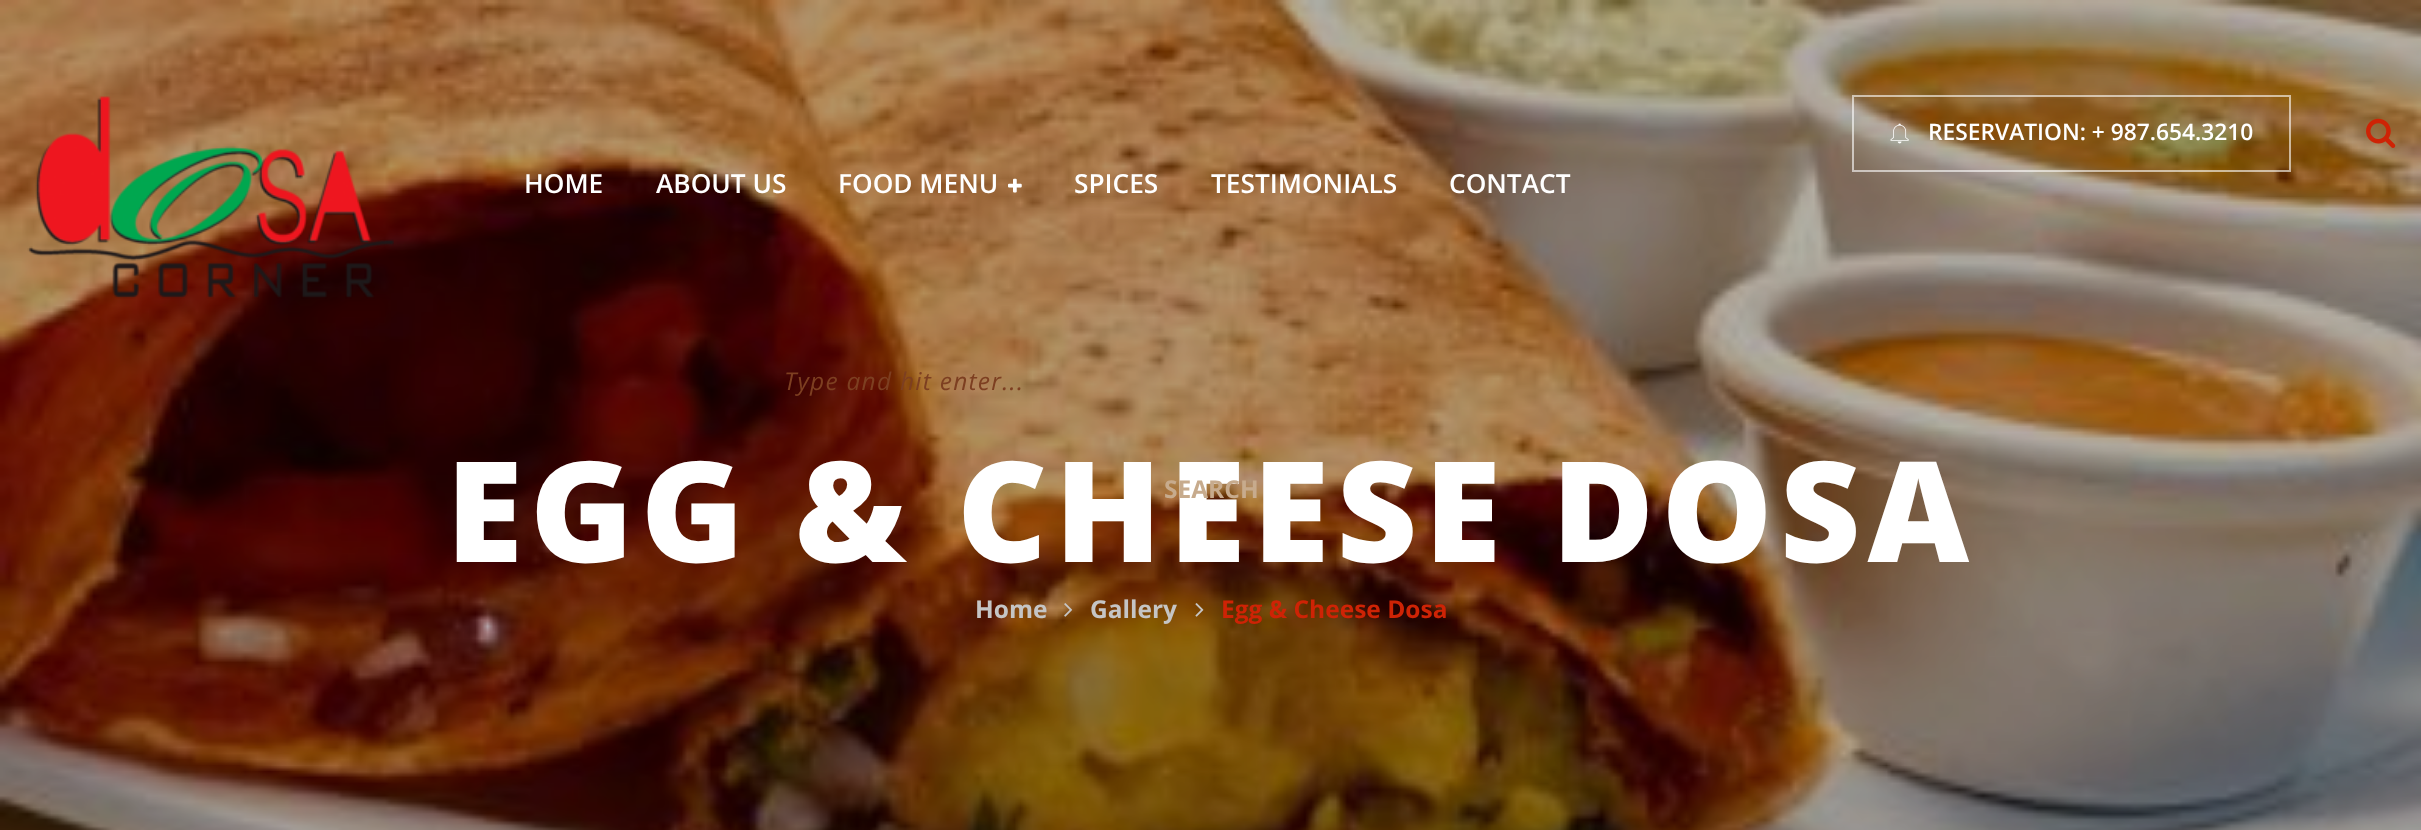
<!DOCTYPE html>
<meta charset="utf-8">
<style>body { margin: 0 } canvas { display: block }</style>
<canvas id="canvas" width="2421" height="830"></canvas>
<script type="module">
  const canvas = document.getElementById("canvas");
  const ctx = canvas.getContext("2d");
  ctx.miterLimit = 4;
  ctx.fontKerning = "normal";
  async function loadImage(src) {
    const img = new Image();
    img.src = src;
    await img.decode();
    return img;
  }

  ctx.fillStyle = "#ffffff";
  ctx.fillRect(0, 0, 2421, 830);
  ctx.drawImage(await loadImage("img5.png"), 0, 0, 2421, 830);
  ctx.drawImage(await loadImage("img1.png"), 27, 96, 367, 203);
  ctx.strokeStyle = "rgba(255, 255, 255, 0.6)";
  ctx.lineWidth = 2;
  ctx.strokeRect(1853, 96, 437, 75);
  ctx.drawImage(await loadImage("img2.png"), 1890, 123, 19, 21);
  ctx.font = "600 22.75px Open Sans";
  ctx.fillText("RESERVATION: + 987.654.3210", 1928, 140);
  ctx.drawImage(await loadImage("img3.png"), 2366, 118, 30, 30);
  ctx.font = "600 26.25px Open Sans";
  ctx.fillText("HOME", 524, 193);
  ctx.fillText("ABOUT US", 656, 193);
  ctx.fillText("FOOD MENU", 838, 193);
  ctx.drawImage(await loadImage("img4.png"), 1008, 178, 14, 15);
  ctx.fillText("SPICES", 1074, 193);
  ctx.fillText("TESTIMONIALS", 1211, 193);
  ctx.fillText("CONTACT", 1449, 193);
  ctx.letterSpacing = "7px";
  ctx.font = "800 140px Open Sans";
  ctx.fillText("EGG & CHEESE DOSA", 446, 562);
  ctx.letterSpacing = "0px";
  ctx.font = "bold 24.5px Open Sans";
  ctx.fillStyle = "#c5c5c5";
  ctx.fillText("Home", 975, 618);
  ctx.drawImage(await loadImage("img6.png"), 1064, 603, 9, 14);
  ctx.fillText("Gallery", 1090, 618);
  ctx.drawImage(await loadImage("img7.png"), 1195, 603, 9, 14);
  ctx.fillStyle = "#ce2305";
  ctx.fillText("Egg & Cheese Dosa", 1221, 618);
  ctx.letterSpacing = "1.25px";
  ctx.font = "italic 24.5px Open Sans";
  ctx.fillStyle = "#7d3f21";
  ctx.fillText("Type and hit enter...", 784, 390);
  ctx.letterSpacing = "0px";
  ctx.font = "bold 24.5px Open Sans";
  ctx.fillStyle = "#c7ab8d";
  ctx.fillText("SEARCH", 1164, 498);
</script>
